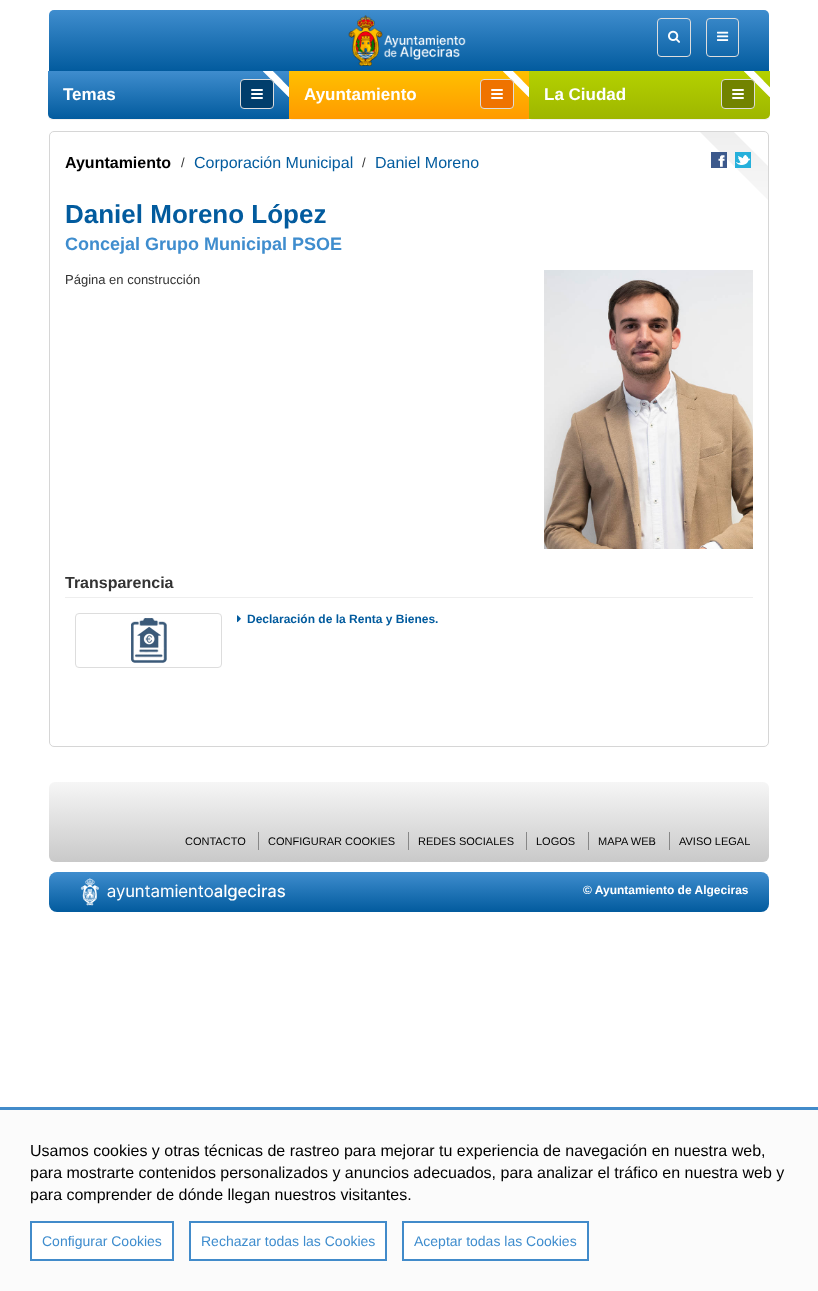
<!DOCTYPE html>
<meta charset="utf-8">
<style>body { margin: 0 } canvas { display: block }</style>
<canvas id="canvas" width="818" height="1291"></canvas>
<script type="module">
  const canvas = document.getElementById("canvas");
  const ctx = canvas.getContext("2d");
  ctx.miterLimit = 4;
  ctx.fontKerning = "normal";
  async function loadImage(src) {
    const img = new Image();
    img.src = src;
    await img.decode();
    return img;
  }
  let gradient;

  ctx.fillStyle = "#ffffff";
  ctx.fillRect(0, 0, 818, 1291);
  ctx.fillStyle = "rgba(0, 0, 0, 0.05)";
  ctx.filter = "blur(0.5px)";
  ctx.beginPath();
  ctx.roundRect(48, 72, 241, 48, 4);
  ctx.fill();
  ctx.filter = "none";
  ctx.fillStyle = "#ffffff";
  ctx.beginPath();
  ctx.roundRect(48, 71, 241, 48, 4);
  ctx.fill();
  gradient = ctx.createLinearGradient(169, 71, 169, 119);
  gradient.addColorStop(0, "#3f8dce");
  gradient.addColorStop(1, "#025b9e");
  ctx.fillStyle = gradient;
  ctx.beginPath();
  ctx.roundRect(48, 71, 241, 48, [0, 0, 0, 5]);
  ctx.fill();
  ctx.drawImage(await loadImage("img4.png"), 263, 71, 26, 26);
  ctx.fillStyle = "rgba(0, 0, 0, 0.05)";
  ctx.filter = "blur(0.5px)";
  ctx.beginPath();
  ctx.roundRect(289, 72, 240, 48, 4);
  ctx.fill();
  ctx.filter = "none";
  gradient = ctx.createLinearGradient(409, 71, 409, 119);
  gradient.addColorStop(0, "#ffc000");
  gradient.addColorStop(1, "#ff9a00");
  ctx.fillStyle = gradient;
  ctx.fillRect(289, 71, 240, 48);
  ctx.drawImage(await loadImage("img5.png"), 503, 71, 26, 26);
  ctx.fillStyle = "rgba(0, 0, 0, 0.05)";
  ctx.filter = "blur(0.5px)";
  ctx.beginPath();
  ctx.roundRect(529, 72, 241, 48, 4);
  ctx.fill();
  ctx.filter = "none";
  gradient = ctx.createLinearGradient(409, 10, 409, 71);
  gradient.addColorStop(0, "#3f8dce");
  gradient.addColorStop(1, "#025b9e");
  ctx.fillStyle = gradient;
  ctx.beginPath();
  ctx.roundRect(49, 10, 720, 61, [5, 5, 0, 0]);
  ctx.fill();
  ctx.drawImage(await loadImage("img1.png"), 348, 15, 118, 51);
  ctx.beginPath();
  ctx.roundRect(657.5, 18.5, 33, 38, 3.5);
  ctx.strokeStyle = "#dddddd";
  ctx.stroke();
  ctx.drawImage(await loadImage("img2.png"), 668, 30, 12, 13);
  ctx.beginPath();
  ctx.roundRect(706.5, 18.5, 32, 38, 3.5);
  ctx.stroke();
  ctx.drawImage(await loadImage("img3.png"), 717, 31, 12, 10);
  ctx.font = "bold 17px Liberation Sans";
  ctx.fillStyle = "#ffffff";
  ctx.fillText("Temas", 63, 100);
  ctx.fillStyle = "#013e6c";
  ctx.beginPath();
  ctx.roundRect(240.5, 79.5, 33, 29, 3.5);
  ctx.fill();
  ctx.stroke();
  ctx.fillStyle = "#ffffff";
  ctx.beginPath();
  ctx.roundRect(251, 89, 12, 2, 1);
  ctx.fill();
  ctx.beginPath();
  ctx.roundRect(251, 93, 12, 2, 1);
  ctx.fill();
  ctx.beginPath();
  ctx.roundRect(251, 97, 12, 2, 1);
  ctx.fill();
  ctx.fillText("Ayuntamiento", 304, 100);
  ctx.fillStyle = "#ef7300";
  ctx.beginPath();
  ctx.roundRect(480.5, 79.5, 33, 29, 3.5);
  ctx.fill();
  ctx.stroke();
  ctx.fillStyle = "#ffffff";
  ctx.beginPath();
  ctx.roundRect(491, 89, 12, 2, 1);
  ctx.fill();
  ctx.beginPath();
  ctx.roundRect(491, 93, 12, 2, 1);
  ctx.fill();
  ctx.beginPath();
  ctx.roundRect(491, 97, 12, 2, 1);
  ctx.fill();
  ctx.beginPath();
  ctx.roundRect(529, 71, 241, 48, 4);
  ctx.fill();
  gradient = ctx.createLinearGradient(650, 71, 650, 119);
  gradient.addColorStop(0, "#b4d100");
  gradient.addColorStop(1, "#9eb600");
  ctx.fillStyle = gradient;
  ctx.beginPath();
  ctx.roundRect(529, 71, 241, 48, [0, 0, 5, 0]);
  ctx.fill();
  ctx.drawImage(await loadImage("img6.png"), 744, 71, 26, 26);
  ctx.fillStyle = "#ffffff";
  ctx.fillText("La Ciudad", 544, 100);
  ctx.fillStyle = "#728300";
  ctx.beginPath();
  ctx.roundRect(721.5, 79.5, 33, 29, 3.5);
  ctx.fill();
  ctx.stroke();
  ctx.fillStyle = "#ffffff";
  ctx.beginPath();
  ctx.roundRect(732, 89, 12, 2, 1);
  ctx.fill();
  ctx.beginPath();
  ctx.roundRect(732, 93, 12, 2, 1);
  ctx.fill();
  ctx.beginPath();
  ctx.roundRect(732, 97, 12, 2, 1);
  ctx.fill();
  ctx.drawImage(await loadImage("img7.png"), 700, 132, 68, 68);
  ctx.beginPath();
  ctx.roundRect(49.5, 131.5, 719, 615, 4.5);
  ctx.strokeStyle = "#d6d6d6";
  ctx.stroke();
  ctx.font = "bold 16px Liberation Sans";
  ctx.fillStyle = "#000000";
  ctx.fillText("Ayuntamiento", 65, 168);
  ctx.font = "13px Liberation Sans";
  ctx.fillStyle = "#333333";
  ctx.fillText("/", 181, 167);
  ctx.font = "16px Liberation Sans";
  ctx.fillStyle = "#025b9e";
  ctx.fillText("Corporación Municipal", 194, 168);
  ctx.font = "13px Liberation Sans";
  ctx.fillStyle = "#333333";
  ctx.fillText("/", 362, 167);
  ctx.font = "16px Liberation Sans";
  ctx.fillStyle = "#025b9e";
  ctx.fillText("Daniel Moreno", 375, 168);
  ctx.drawImage(await loadImage("img8.png"), 711, 152, 16, 16);
  ctx.drawImage(await loadImage("img9.png"), 735, 152, 16, 16);
  ctx.font = "bold 26px Liberation Sans";
  ctx.fillText("Daniel Moreno López", 65, 223);
  ctx.font = "bold 18px Liberation Sans";
  ctx.fillStyle = "#3f8dce";
  ctx.fillText("Concejal Grupo Municipal PSOE", 65, 250);
  ctx.font = "13px Liberation Sans";
  ctx.fillStyle = "#333333";
  ctx.fillText("Página en construcción", 65, 284);
  ctx.drawImage(await loadImage("img10.png"), 544, 270, 209, 279);
  ctx.fillStyle = "#eeeeee";
  ctx.fillRect(65, 597, 688, 1);
  ctx.font = "bold 16px Liberation Sans";
  ctx.fillStyle = "#333333";
  ctx.fillText("Transparencia", 65, 588);
  ctx.beginPath();
  ctx.roundRect(75.5, 613.5, 146, 54, 3.5);
  ctx.strokeStyle = "#dddddd";
  ctx.stroke();
  ctx.drawImage(await loadImage("img11.png"), 131, 618, 36, 45);
  ctx.drawImage(await loadImage("img12.png"), 237, 615, 4, 8);
  ctx.font = "bold 12px Liberation Sans";
  ctx.fillStyle = "#025b9e";
  ctx.fillText("Declaración de la Renta y Bienes.", 247, 623);
  gradient = ctx.createLinearGradient(409, 782, 409, 862);
  gradient.addColorStop(0, "#f6f6f6");
  gradient.addColorStop(1, "#c9c9c9");
  ctx.fillStyle = gradient;
  ctx.beginPath();
  ctx.roundRect(49, 782, 720, 80, 6);
  ctx.fill();
  ctx.font = "11px Liberation Sans";
  ctx.fillStyle = "#000000";
  ctx.fillText("CONTACTO", 185, 845);
  ctx.fillStyle = "#878787";
  ctx.fillRect(258, 832, 1, 18);
  ctx.fillStyle = "#000000";
  ctx.fillText("CONFIGURAR COOKIES", 268, 845);
  ctx.fillStyle = "#878787";
  ctx.fillRect(408, 832, 1, 18);
  ctx.fillStyle = "#000000";
  ctx.fillText("REDES SOCIALES", 418, 845);
  ctx.fillStyle = "#878787";
  ctx.fillRect(526, 832, 1, 18);
  ctx.fillStyle = "#000000";
  ctx.fillText("LOGOS", 536, 845);
  ctx.fillStyle = "#878787";
  ctx.fillRect(588, 832, 1, 18);
  ctx.fillStyle = "#000000";
  ctx.fillText("MAPA WEB", 598, 845);
  ctx.fillStyle = "#878787";
  ctx.fillRect(669, 832, 1, 18);
  ctx.fillStyle = "#000000";
  ctx.fillText("AVISO LEGAL", 679, 845);
  gradient = ctx.createLinearGradient(409, 872, 409, 912);
  gradient.addColorStop(0, "#3f8dce");
  gradient.addColorStop(1, "#025b9e");
  ctx.fillStyle = gradient;
  ctx.beginPath();
  ctx.roundRect(49, 872, 720, 40, 8);
  ctx.fill();
  ctx.drawImage(await loadImage("img13.png"), 80, 878, 206, 28);
  ctx.font = "bold 12px Liberation Sans";
  ctx.fillStyle = "#ffffff";
  ctx.fillText("© Ayuntamiento de Algeciras", 583, 894);
  ctx.fillStyle = "#fbfbfb";
  ctx.fillRect(0, 1110, 818, 181);
  ctx.fillStyle = "#428bca";
  ctx.fillRect(0, 1107, 818, 3);
  ctx.font = "16px Liberation Sans";
  ctx.fillStyle = "#000000";
  ctx.fillText("Usamos cookies y otras técnicas de rastreo para mejorar tu experiencia de navegación en nuestra web,", 30, 1156);
  ctx.fillText("para mostrarte contenidos personalizados y anuncios adecuados, para analizar el tráfico en nuestra web y", 30, 1178);
  ctx.fillText("para comprender de dónde llegan nuestros visitantes.", 30, 1200);
  ctx.fillStyle = "#ffffff";
  ctx.beginPath();
  ctx.rect(31, 1222, 142, 38);
  ctx.fill();
  ctx.strokeStyle = "#428bca";
  ctx.lineWidth = 2;
  ctx.stroke();
  ctx.font = "14px Liberation Sans";
  ctx.fillStyle = "#3f8dce";
  ctx.fillText("Configurar Cookies", 42, 1246);
  ctx.fillStyle = "#ffffff";
  ctx.beginPath();
  ctx.rect(190, 1222, 196, 38);
  ctx.fill();
  ctx.stroke();
  ctx.fillStyle = "#3f8dce";
  ctx.fillText("Rechazar todas las Cookies", 201, 1246);
  ctx.fillStyle = "#ffffff";
  ctx.beginPath();
  ctx.rect(403, 1222, 185, 38);
  ctx.fill();
  ctx.stroke();
  ctx.fillStyle = "#3f8dce";
  ctx.fillText("Aceptar todas las Cookies", 414, 1246);
</script>
